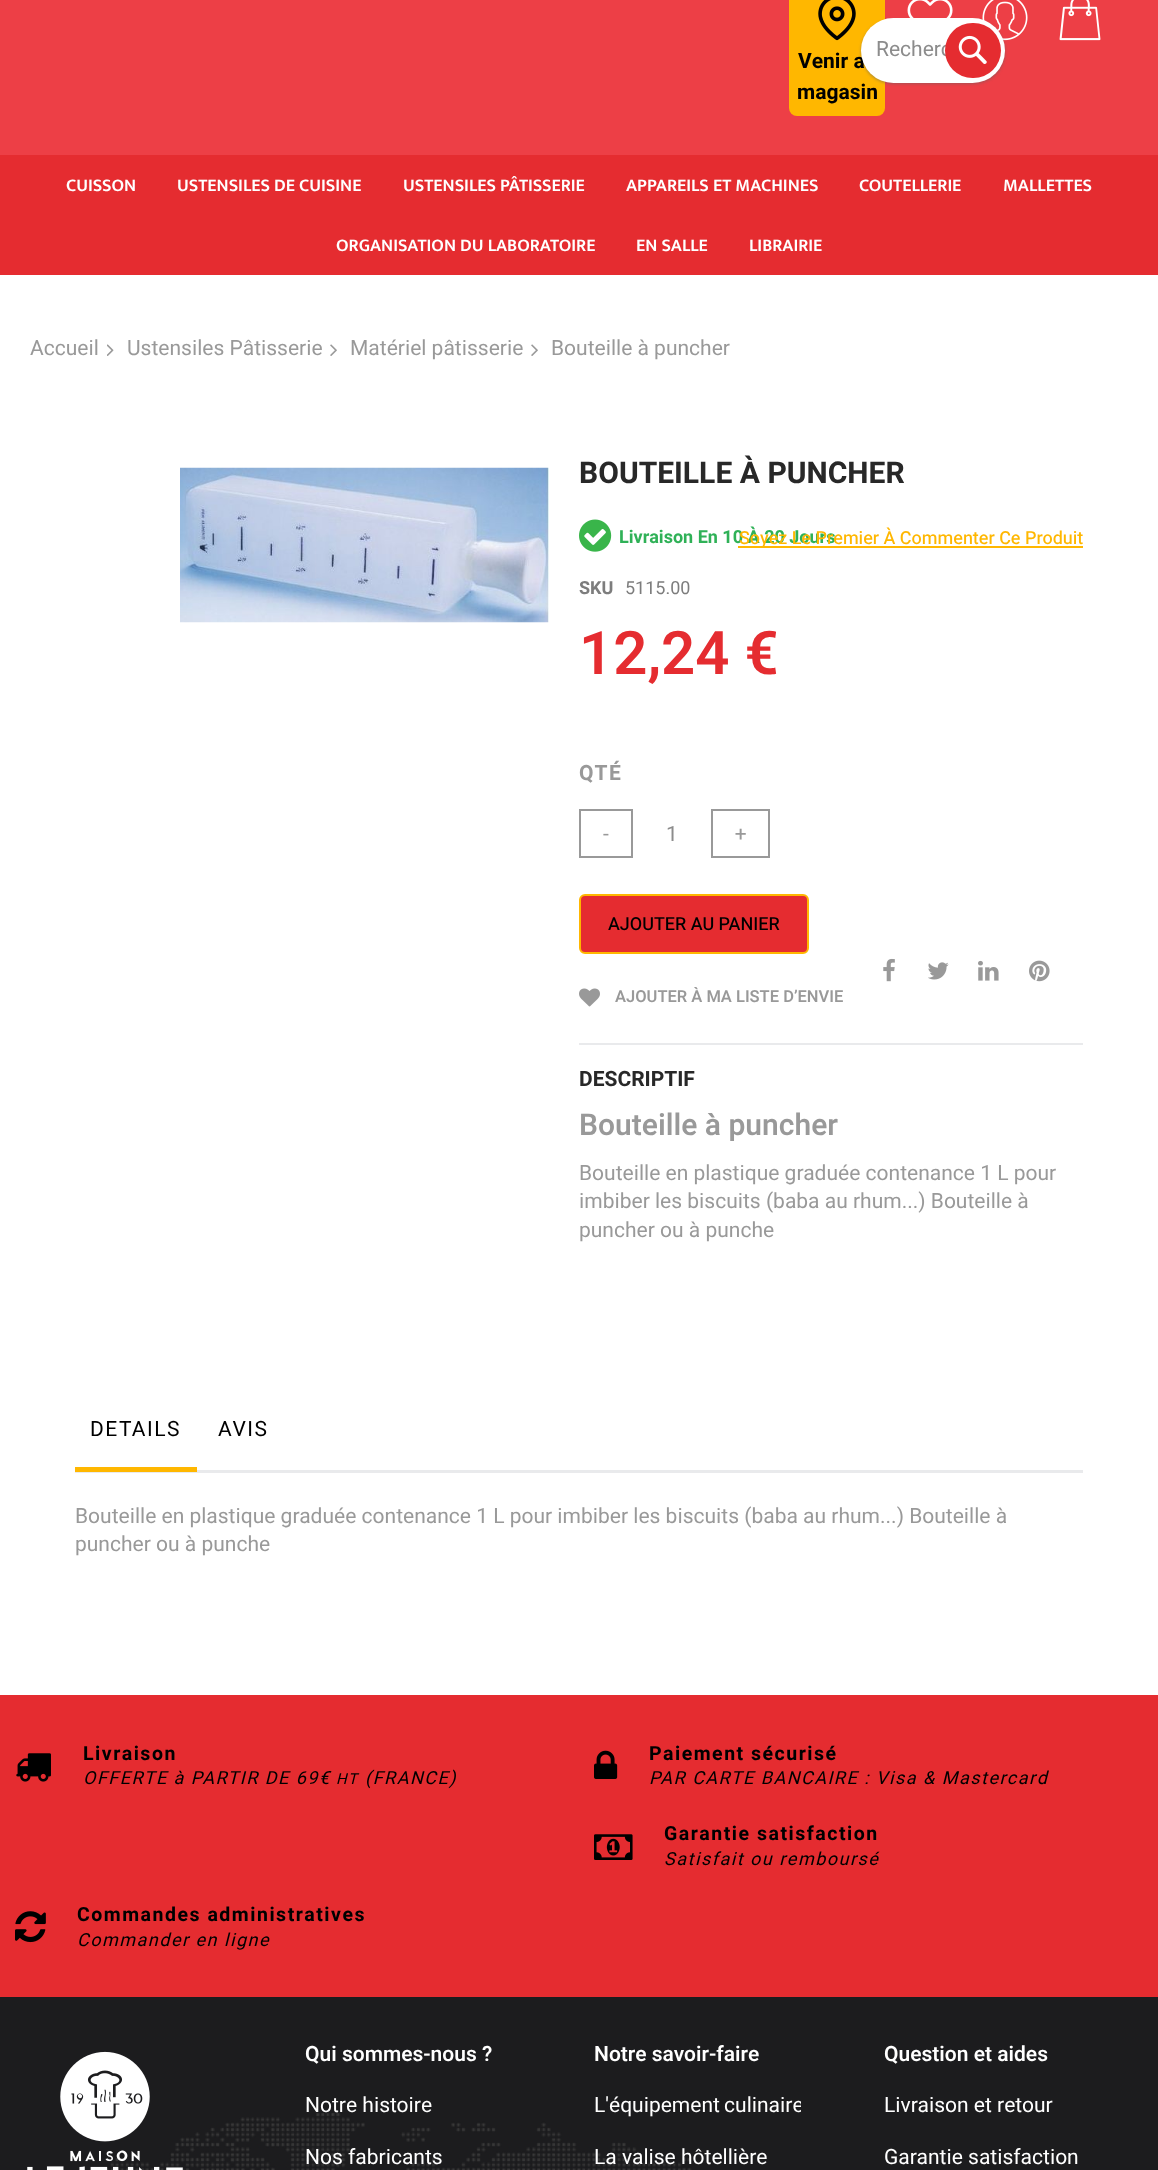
<!DOCTYPE html>
<meta charset="utf-8">
<style>body { margin: 0 } canvas { display: block }</style>
<canvas id="canvas" width="1158" height="2170"></canvas>
<script type="module">
  const canvas = document.getElementById("canvas");
  const ctx = canvas.getContext("2d");
  ctx.miterLimit = 4;
  ctx.fontKerning = "normal";
  async function loadImage(src) {
    const img = new Image();
    img.src = src;
    await img.decode();
    return img;
  }

  ctx.fillStyle = "#ffffff";
  ctx.fillRect(0, 0, 1158, 2170);
  ctx.fillStyle = "#ed3f46";
  ctx.fillRect(0, 0, 1158, 155);
  ctx.drawImage(await loadImage("img2.png"), 907, 0, 46, 18);
  ctx.drawImage(await loadImage("img3.png"), 982, 0, 46, 41);
  ctx.fillStyle = "#ffb700";
  ctx.beginPath();
  ctx.roundRect(789, -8, 96, 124, 8);
  ctx.fill();
  ctx.drawImage(await loadImage("img5.png"), 818, 0, 38, 41);
  ctx.fillStyle = "rgba(98, 98, 98, 0.5)";
  ctx.filter = "blur(1.5px)";
  ctx.beginPath();
  ctx.roundRect(861, 20, 144, 64, 32);
  ctx.fill();
  ctx.filter = "none";
  ctx.font = "bold 21px Heebo";
  ctx.fillStyle = "#000000";
  ctx.fillText("Venir a", 798, 68);
  ctx.fillStyle = "#ffffff";
  ctx.beginPath();
  ctx.roundRect(861, 18, 144, 65, 32.5);
  ctx.fill();
  ctx.font = "21px Heebo";
  ctx.fillStyle = "#8c8c8c";
  ctx.fillText("Recherc", 876, 56);
  ctx.fillStyle = "#e52c30";
  ctx.beginPath();
  ctx.roundRect(945, 23, 56, 55, 27.5);
  ctx.fill();
  ctx.drawImage(await loadImage("img1.png"), 958, 35, 29, 29);
  ctx.drawImage(await loadImage("img4.png"), 1059, 0, 42, 41);
  ctx.font = "bold 21px Heebo";
  ctx.fillStyle = "#000000";
  ctx.fillText("magasin", 797, 99);
  ctx.fillStyle = "#e52c30";
  ctx.fillRect(0, 155, 1158, 120);
  ctx.font = "600 18px Mukta";
  ctx.fillStyle = "#ffffff";
  ctx.fillText("CUISSON", 66, 191);
  ctx.fillText("USTENSILES DE CUISINE", 177, 191);
  ctx.fillText("USTENSILES PÂTISSERIE", 403, 191);
  ctx.fillText("APPAREILS ET MACHINES", 626, 191);
  ctx.fillText("COUTELLERIE", 859, 191);
  ctx.fillText("MALLETTES", 1003, 191);
  ctx.fillText("ORGANISATION DU LABORATOIRE", 336, 251);
  ctx.fillText("EN SALLE", 636, 251);
  ctx.fillText("LIBRAIRIE", 749, 251);
  ctx.font = "21px Heebo";
  ctx.fillStyle = "#999999";
  ctx.fillText("Accueil", 30, 355);
  ctx.drawImage(await loadImage("img6.png"), 107, 344, 7, 12);
  ctx.fillText("Ustensiles Pâtisserie", 127, 355);
  ctx.drawImage(await loadImage("img7.png"), 330, 344, 7, 12);
  ctx.fillText("Matériel pâtisserie", 350, 355);
  ctx.drawImage(await loadImage("img7.png"), 531, 344, 7, 12);
  ctx.fillText("Bouteille à puncher", 551, 355);
  ctx.drawImage(await loadImage("img8.png"), 180, 467, 369, 156);
  ctx.font = "bold 30px Heebo";
  ctx.fillStyle = "#282828";
  ctx.fillText("BOUTEILLE À PUNCHER", 579, 483);
  ctx.drawImage(await loadImage("img9.png"), 579, 519, 33, 33);
  ctx.font = "bold 18px Heebo";
  ctx.fillStyle = "#2fb157";
  ctx.fillText("Livraison En 10 À 20 Jours", 619, 543);
  ctx.fillStyle = "#7d7d7d";
  ctx.fillText("SKU", 579, 594);
  ctx.font = "18px Heebo";
  ctx.fillText("5115.00", 625, 594);
  ctx.font = "600 60px Heebo";
  ctx.fillStyle = "#e52c30";
  ctx.fillText("12,24 €", 579, 674);
  ctx.fillStyle = "#ffb700";
  ctx.fillRect(738, 546, 345, 2);
  ctx.font = "500 18px Heebo";
  ctx.fillText("Soyez Le Premier À Commenter Ce Produit", 739, 544);
  ctx.letterSpacing = "1.5px";
  ctx.font = "bold 21px Heebo";
  ctx.fillStyle = "#999999";
  ctx.fillText("QTÉ", 579, 780);
  ctx.strokeStyle = "#999999";
  ctx.lineWidth = 2;
  ctx.strokeRect(580, 810, 52, 47);
  ctx.letterSpacing = "0px";
  ctx.font = "21px Heebo";
  ctx.fillText("-", 603, 841);
  ctx.fillStyle = "#8c8c8c";
  ctx.fillText("1", 666, 841);
  ctx.strokeRect(712, 810, 57, 47);
  ctx.fillStyle = "#999999";
  ctx.fillText("+", 735, 841);
  ctx.fillStyle = "#e52c30";
  ctx.beginPath();
  ctx.roundRect(580, 895, 228, 58, 5);
  ctx.fill();
  ctx.strokeStyle = "#ffb700";
  ctx.stroke();
  ctx.font = "500 18px Heebo";
  ctx.fillStyle = "#000000";
  ctx.fillText("AJOUTER AU PANIER", 608, 930);
  ctx.fillStyle = "#e9eaec";
  ctx.fillRect(579, 1043, 504, 2);
  ctx.drawImage(await loadImage("img10.png"), 883, 958, 12, 24);
  ctx.drawImage(await loadImage("img11.png"), 928, 962, 21, 18);
  ctx.drawImage(await loadImage("img12.png"), 978, 960, 21, 21);
  ctx.drawImage(await loadImage("img13.png"), 1029, 960, 21, 22);
  ctx.drawImage(await loadImage("img14.png"), 579, 988, 21, 19);
  ctx.font = "600 16.5px Heebo";
  ctx.fillStyle = "#999999";
  ctx.fillText("AJOUTER À MA LISTE D’ENVIE", 615, 1002);
  ctx.font = "bold 21px Heebo";
  ctx.fillStyle = "#282828";
  ctx.fillText("DESCRIPTIF", 579, 1086);
  ctx.font = "600 30px Heebo";
  ctx.fillStyle = "#999999";
  ctx.fillText("Bouteille à puncher", 579, 1135);
  ctx.font = "21px Heebo";
  ctx.fillText("Bouteille en plastique graduée contenance 1 L pour", 579, 1180);
  ctx.fillText("imbiber les biscuits (baba au rhum...) Bouteille à", 579, 1208);
  ctx.fillText("puncher ou à punche", 579, 1237);
  ctx.letterSpacing = "1.5px";
  ctx.fillStyle = "#000000";
  ctx.fillText("DETAILS", 90, 1436);
  ctx.fillStyle = "#e9eaec";
  ctx.fillRect(75, 1470, 1008, 3);
  ctx.fillStyle = "#ffb700";
  ctx.fillRect(75, 1467, 122, 5);
  ctx.fillStyle = "#000000";
  ctx.fillText("AVIS", 218, 1436);
  ctx.letterSpacing = "0px";
  ctx.fillStyle = "#999999";
  ctx.fillText("Bouteille en plastique graduée contenance 1 L pour imbiber les biscuits (baba au rhum...) Bouteille à", 75, 1523);
  ctx.fillText("puncher ou à punche", 75, 1551);
  ctx.fillStyle = "#e52c30";
  ctx.fillRect(0, 1695, 1158, 302);
  ctx.drawImage(await loadImage("img15.png"), 16, 1753, 35, 29);
  ctx.letterSpacing = "1.5px";
  ctx.font = "bold 19.5px Heebo";
  ctx.fillStyle = "#000000";
  ctx.fillText("Livraison", 83, 1760);
  ctx.font = "italic 18px Heebo";
  ctx.fillText("OFFERTE à PARTIR DE 69€", 83, 1784);
  ctx.font = "italic 15px Heebo";
  ctx.fillText("HT", 336, 1784);
  ctx.font = "italic 18px Heebo";
  ctx.fillText("(FRANCE)", 365, 1784);
  ctx.drawImage(await loadImage("img16.png"), 594, 1750, 24, 29);
  ctx.font = "bold 19.5px Heebo";
  ctx.fillText("Paiement sécurisé", 649, 1760);
  ctx.font = "italic 18px Heebo";
  ctx.fillText("PAR CARTE BANCAIRE : Visa & Mastercard", 649, 1784);
  ctx.drawImage(await loadImage("img17.png"), 594, 1834, 39, 26);
  ctx.font = "bold 19.5px Heebo";
  ctx.fillText("Garantie satisfaction", 664, 1840);
  ctx.font = "italic 18px Heebo";
  ctx.fillText("Satisfait ou remboursé", 664, 1865);
  ctx.drawImage(await loadImage("img18.png"), 15, 1911, 31, 32);
  ctx.font = "bold 19.5px Heebo";
  ctx.fillText("Commandes administratives", 77, 1921);
  ctx.font = "italic 18px Heebo";
  ctx.fillText("Commander en ligne", 77, 1946);
  ctx.fillStyle = "#1c1c1e";
  ctx.fillRect(0, 1997, 1158, 173);
  ctx.drawImage(await loadImage("img19.png"), 107, 2113, 585, 57);
  ctx.drawImage(await loadImage("img20.png"), 27, 2051, 156, 119);
  ctx.letterSpacing = "0px";
  ctx.font = "600 21px Heebo";
  ctx.fillStyle = "#ffffff";
  ctx.fillText("Qui sommes-nous ?", 305, 2061);
  ctx.font = "21px Heebo";
  ctx.fillText("Notre histoire", 305, 2112);
  ctx.fillText("Nos fabricants", 305, 2164);
  ctx.font = "600 21px Heebo";
  ctx.fillText("Notre savoir-faire", 594, 2061);
  ctx.save();
  ctx.beginPath();
  ctx.rect(594, 2093, 207, 28);
  ctx.clip();
  ctx.wordSpacing = "-1px";
  ctx.font = "21px Heebo";
  ctx.fillText("L'équipement culinaire", 594, 2112);
  ctx.restore();
  ctx.font = "21px Heebo";
  ctx.fillText("La valise hôtellière", 594, 2164);
  ctx.font = "600 21px Heebo";
  ctx.fillText("Question et aides", 884, 2061);
  ctx.font = "21px Heebo";
  ctx.fillText("Livraison et retour", 884, 2112);
  ctx.fillText("Garantie satisfaction", 884, 2164);
</script>
